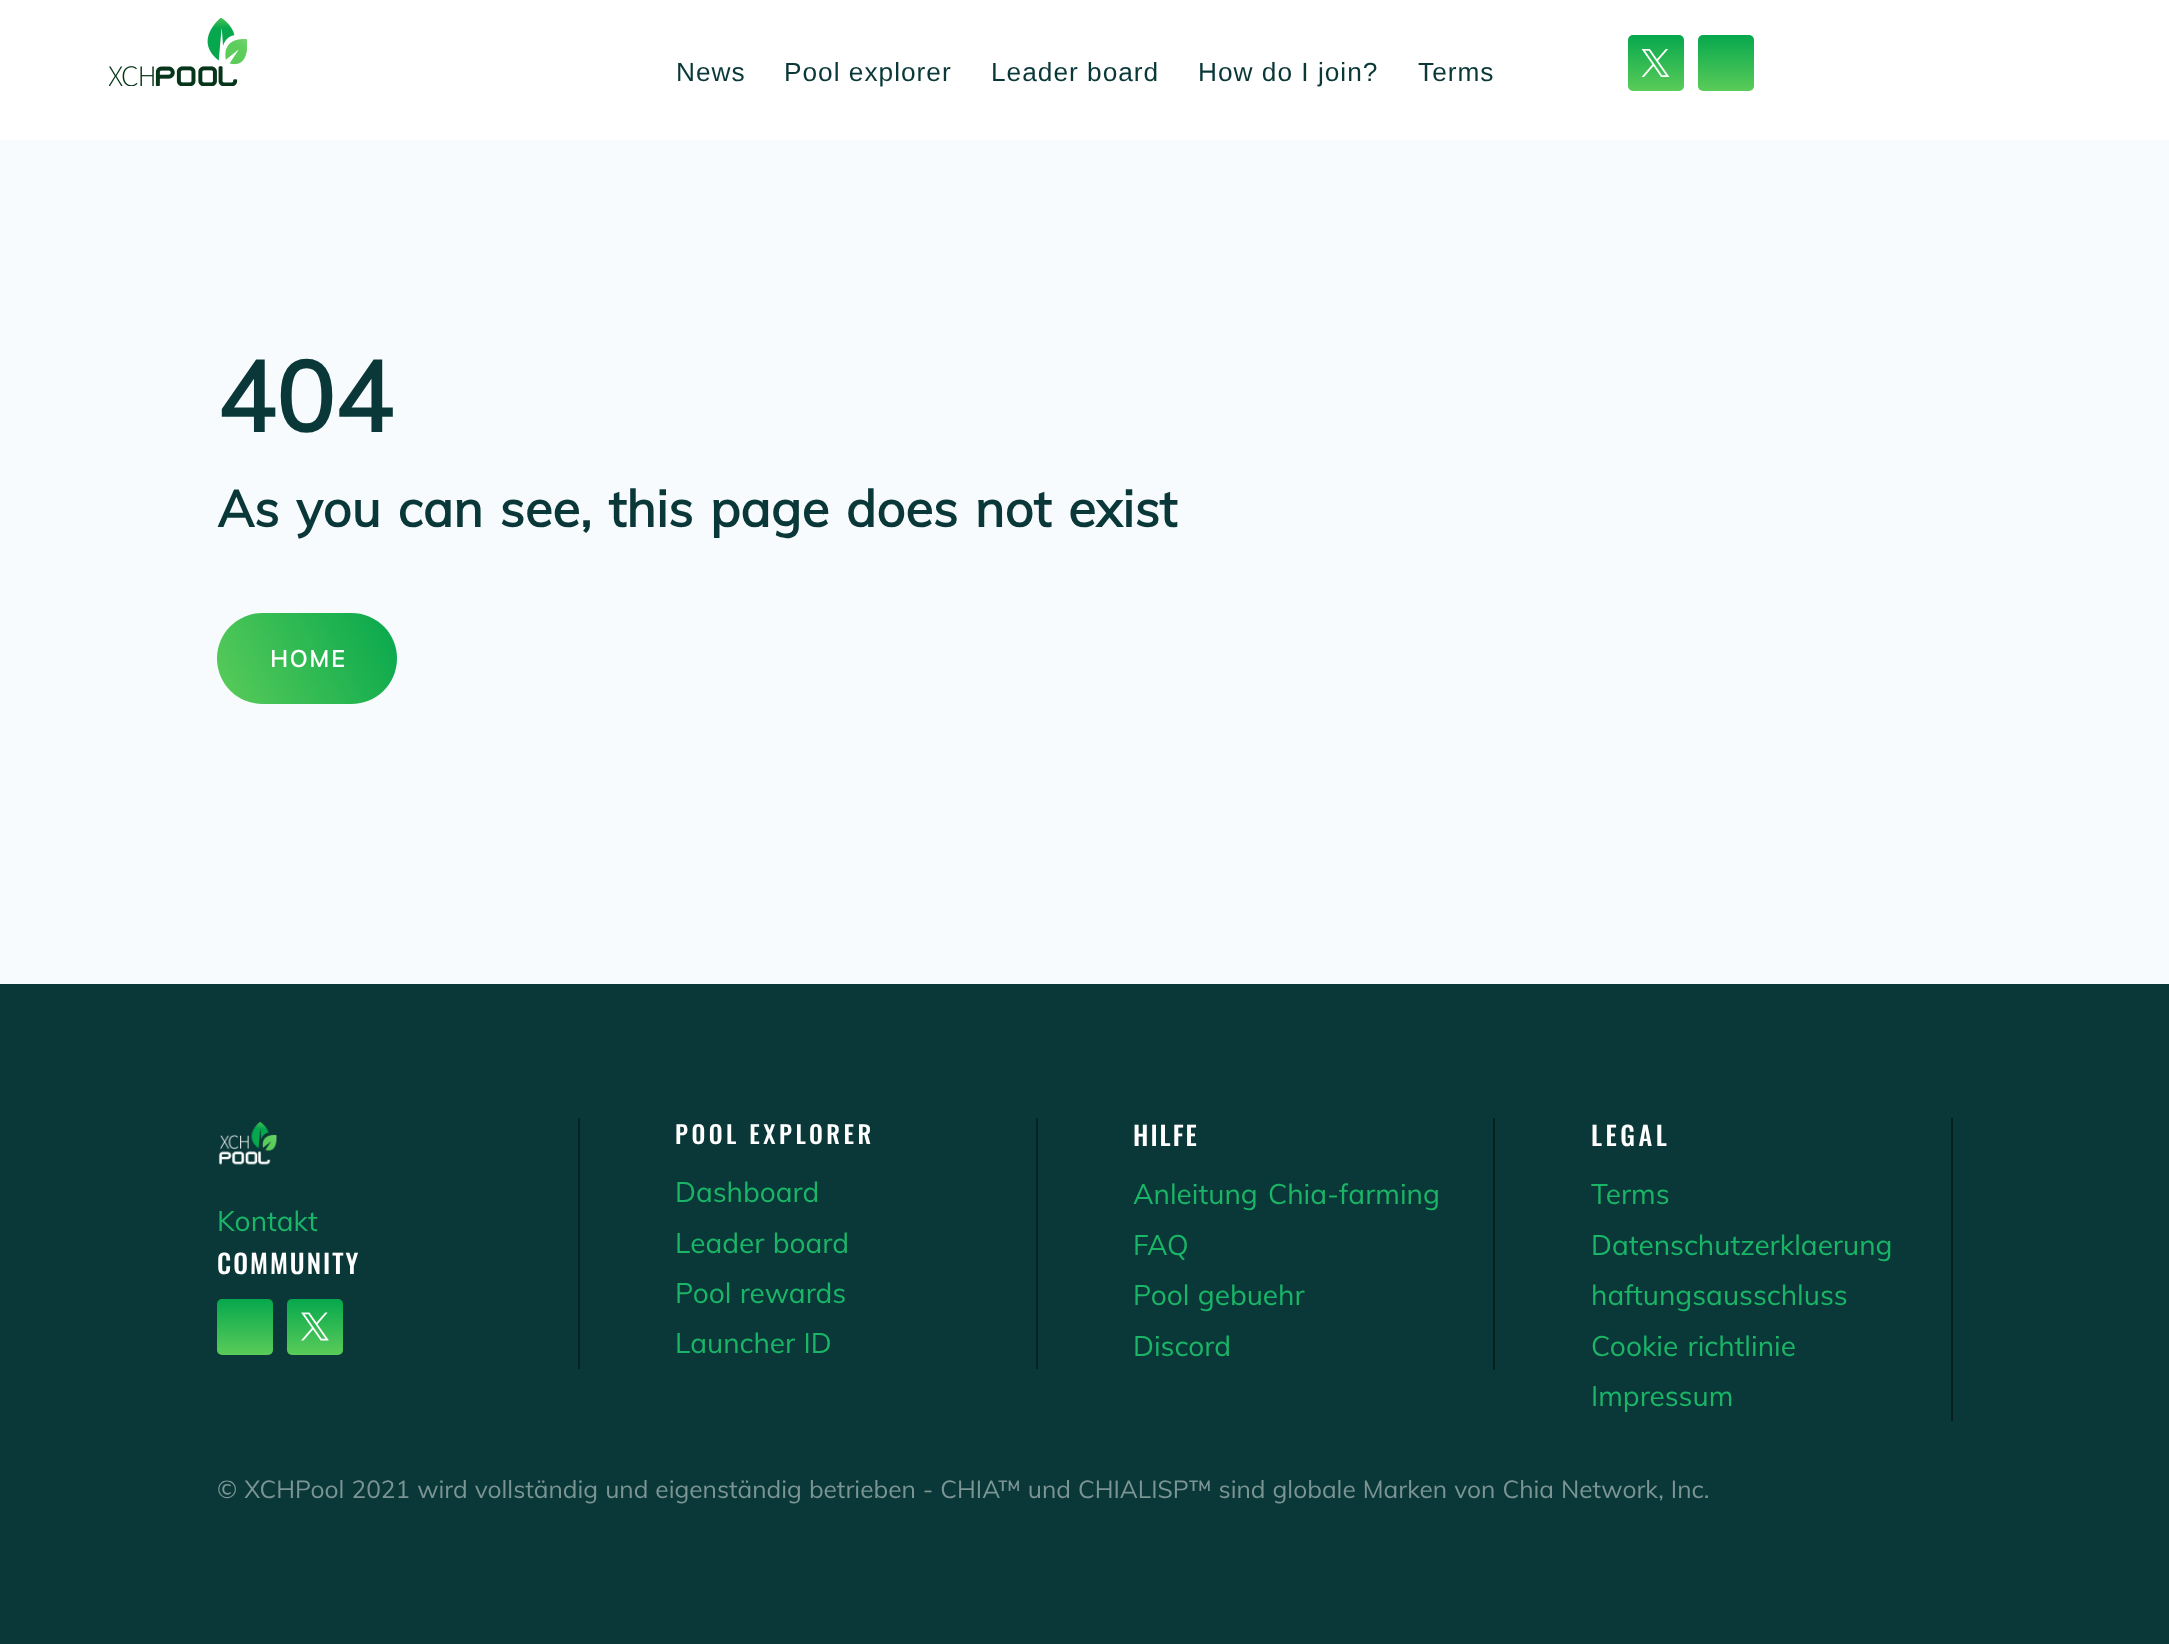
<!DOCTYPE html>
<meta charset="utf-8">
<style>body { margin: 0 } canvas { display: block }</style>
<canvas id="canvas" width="2169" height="1644"></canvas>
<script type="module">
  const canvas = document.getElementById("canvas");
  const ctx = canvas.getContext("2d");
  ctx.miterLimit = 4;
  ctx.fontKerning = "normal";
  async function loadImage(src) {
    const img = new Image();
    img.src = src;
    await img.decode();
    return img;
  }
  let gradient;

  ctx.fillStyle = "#ffffff";
  ctx.fillRect(0, 0, 2169, 1644);
  ctx.drawImage(await loadImage("img1.png"), 109, 18, 138, 68);
  ctx.letterSpacing = "1px";
  ctx.font = "26.25px Liberation Sans";
  ctx.fillStyle = "#0a3838";
  ctx.fillText("News", 676, 81);
  ctx.fillText("Pool explorer", 784, 81);
  ctx.fillText("Leader board", 991, 81);
  ctx.fillText("How do I join?", 1198, 81);
  ctx.fillText("Terms", 1418, 81);
  gradient = ctx.createLinearGradient(1656, 35, 1656, 91);
  gradient.addColorStop(0, "#06a74d");
  gradient.addColorStop(1, "#5acc59");
  ctx.fillStyle = gradient;
  ctx.beginPath();
  ctx.roundRect(1628, 35, 56, 56, 5);
  ctx.fill();
  ctx.drawImage(await loadImage("img2.png"), 1641, 49, 29, 28);
  gradient = ctx.createLinearGradient(1726, 35, 1726, 91);
  gradient.addColorStop(0, "#06a74d");
  gradient.addColorStop(1, "#5acc59");
  ctx.fillStyle = gradient;
  ctx.beginPath();
  ctx.roundRect(1698, 35, 56, 56, 5);
  ctx.fill();
  ctx.fillStyle = "#f8fbfe";
  ctx.fillRect(0, 140, 2169, 844);
  ctx.letterSpacing = "0px";
  ctx.font = "bold 98px Mulish";
  ctx.fillStyle = "#0a3838";
  ctx.fillText("404", 217, 432);
  ctx.wordSpacing = "3.5px";
  ctx.font = "bold 50.75px Mulish";
  ctx.fillText("As you can see, this page does not exist", 217, 527);
  gradient = ctx.createLinearGradient(397, 612, 217, 704);
  gradient.addColorStop(0, "#06a74d");
  gradient.addColorStop(1, "#5acc59");
  ctx.fillStyle = gradient;
  ctx.beginPath();
  ctx.roundRect(217, 613, 180, 91, 45.5);
  ctx.fill();
  ctx.letterSpacing = "2px";
  ctx.wordSpacing = "0px";
  ctx.font = "bold 23px Mulish";
  ctx.fillStyle = "#ffffff";
  ctx.fillText("HOME", 270, 667);
  ctx.fillStyle = "#0a3838";
  ctx.fillRect(0, 984, 2169, 660);
  ctx.fillStyle = "#062323";
  ctx.fillRect(578, 1118, 2, 251);
  ctx.drawImage(await loadImage("img3.png"), 218, 1121, 60, 44);
  ctx.letterSpacing = "0px";
  ctx.font = "28px Mulish";
  ctx.fillStyle = "#1ab567";
  ctx.fillText("Kontakt", 217, 1231);
  ctx.letterSpacing = "2px";
  ctx.font = "500 26.25px Oswald";
  ctx.fillStyle = "#ffffff";
  ctx.fillText("COMMUNITY", 217, 1274);
  gradient = ctx.createLinearGradient(245, 1299, 245, 1355);
  gradient.addColorStop(0, "#06a74d");
  gradient.addColorStop(1, "#5acc59");
  ctx.fillStyle = gradient;
  ctx.beginPath();
  ctx.roundRect(217, 1299, 56, 56, 5);
  ctx.fill();
  gradient = ctx.createLinearGradient(315, 1299, 315, 1355);
  gradient.addColorStop(0, "#06a74d");
  gradient.addColorStop(1, "#5acc59");
  ctx.fillStyle = gradient;
  ctx.beginPath();
  ctx.roundRect(287, 1299, 56, 56, 5);
  ctx.fill();
  ctx.drawImage(await loadImage("img4.png"), 301, 1312, 28, 29);
  ctx.fillStyle = "#062323";
  ctx.fillRect(1036, 1118, 2, 251);
  ctx.letterSpacing = "3.5px";
  ctx.font = "500 24.5px Oswald";
  ctx.fillStyle = "#ffffff";
  ctx.fillText("POOL EXPLORER", 675, 1144);
  ctx.letterSpacing = "0px";
  ctx.font = "28px Mulish";
  ctx.fillStyle = "#1ab567";
  ctx.fillText("Dashboard", 675, 1202);
  ctx.wordSpacing = "1px";
  ctx.fillText("Leader board", 675, 1253);
  ctx.fillText("Pool rewards", 675, 1303);
  ctx.fillText("Launcher ID", 675, 1353);
  ctx.fillStyle = "#051e1e";
  ctx.fillRect(1493, 1118, 2, 252);
  ctx.letterSpacing = "2px";
  ctx.wordSpacing = "0px";
  ctx.font = "500 26.25px Oswald";
  ctx.fillStyle = "#ffffff";
  ctx.fillText("HILFE", 1133, 1146);
  ctx.letterSpacing = "0px";
  ctx.wordSpacing = "3px";
  ctx.font = "28px Mulish";
  ctx.fillStyle = "#1ab567";
  ctx.fillText("Anleitung Chia-farming", 1133, 1204);
  ctx.wordSpacing = "0px";
  ctx.fillText("FAQ", 1133, 1255);
  ctx.wordSpacing = "1px";
  ctx.fillText("Pool gebuehr", 1133, 1305);
  ctx.wordSpacing = "0px";
  ctx.fillText("Discord", 1133, 1356);
  ctx.fillStyle = "#051e1e";
  ctx.fillRect(1951, 1118, 2, 303);
  ctx.letterSpacing = "3.5px";
  ctx.font = "500 26.25px Oswald";
  ctx.fillStyle = "#ffffff";
  ctx.fillText("LEGAL", 1591, 1146);
  ctx.letterSpacing = "0px";
  ctx.font = "28px Mulish";
  ctx.fillStyle = "#1ab567";
  ctx.fillText("Terms", 1591, 1204);
  ctx.fillText("Datenschutzerklaerung", 1591, 1255);
  ctx.fillText("haftungsausschluss", 1591, 1305);
  ctx.wordSpacing = "2px";
  ctx.fillText("Cookie richtlinie", 1591, 1356);
  ctx.wordSpacing = "0px";
  ctx.fillText("Impressum", 1591, 1406);
  ctx.wordSpacing = "0.6px";
  ctx.font = "24.5px Mulish";
  ctx.fillStyle = "#7b9494";
  ctx.fillText("© XCHPool 2021 wird vollständig und eigenständig betrieben - CHIA™ und CHIALISP™ sind globale Marken von Chia Network, Inc.", 217, 1498);
</script>
